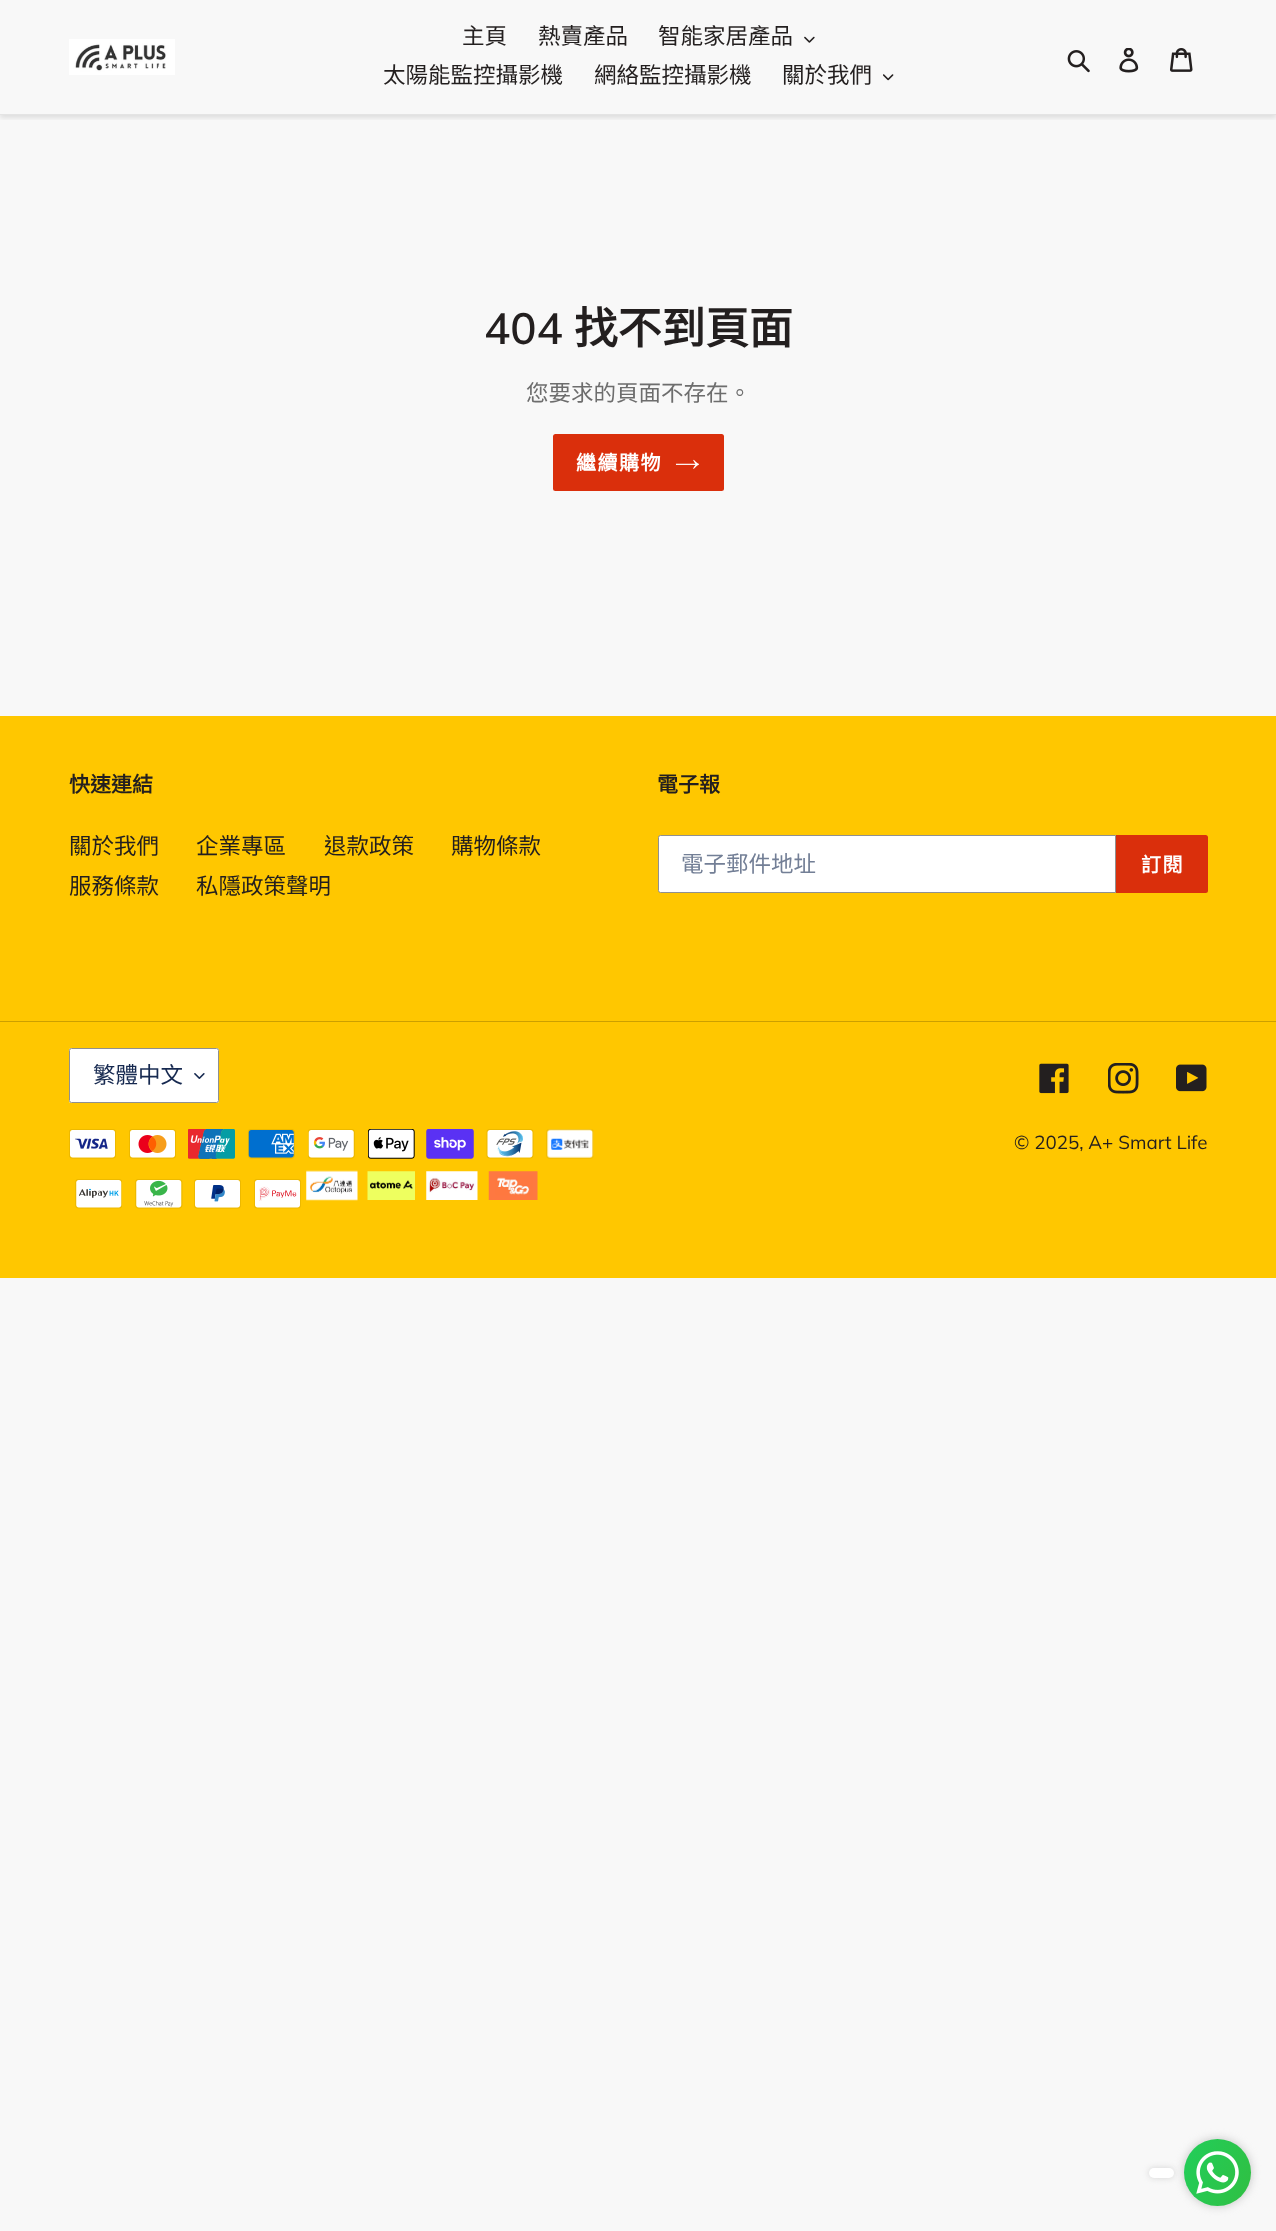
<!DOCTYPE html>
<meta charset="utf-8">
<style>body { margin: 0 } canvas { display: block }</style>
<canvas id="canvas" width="1276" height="2231"></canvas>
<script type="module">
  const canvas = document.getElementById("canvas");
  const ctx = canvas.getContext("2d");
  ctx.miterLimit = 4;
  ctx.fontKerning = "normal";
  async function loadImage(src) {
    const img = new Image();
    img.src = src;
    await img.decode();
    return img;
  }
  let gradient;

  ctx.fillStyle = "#f8f8f8";
  ctx.fillRect(0, 0, 1276, 2231);
  ctx.save();
  ctx.beginPath();
  ctx.rect(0, 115, 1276, 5);
  ctx.clip();
  ctx.fillStyle = "rgba(0, 0, 0, 0.1)";
  ctx.filter = "blur(2.5px)";
  ctx.beginPath();
  ctx.rect(0, 3, 1276, 115);
  ctx.fill();
  ctx.filter = "none";
  ctx.restore();
  ctx.fillStyle = "#e4e4e4";
  ctx.fillRect(0, 114, 1276, 1);
  ctx.drawImage(await loadImage("img1.png"), 69, 39, 106, 36);
  ctx.font = "22.5px Noto Sans CJK TC";
  ctx.fillStyle = "#231f1f";
  ctx.fillText("主頁", 462, 44);
  ctx.fillText("熱賣產品", 538, 44);
  ctx.fillText("智能家居產品", 658, 44);
  ctx.drawImage(await loadImage("img2.png"), 804, 36, 11, 7);
  ctx.fillText("太陽能監控攝影機", 383, 83);
  ctx.fillText("網絡監控攝影機", 594, 83);
  ctx.fillText("關於我們", 782, 83);
  ctx.drawImage(await loadImage("img3.png"), 883, 74, 11, 7);
  ctx.drawImage(await loadImage("img4.png"), 1067, 50, 23, 23);
  ctx.drawImage(await loadImage("img5.png"), 1119, 48, 20, 25);
  ctx.drawImage(await loadImage("img6.png"), 1170, 48, 23, 24);
  ctx.font = "600 43.75px Muli";
  ctx.fillText("404", 484, 344);
  ctx.font = "bold 43.75px Noto Sans CJK TC";
  ctx.fillText("找不到頁面", 574, 344);
  ctx.font = "22.5px Noto Sans CJK TC";
  ctx.fillStyle = "#6d6d6d";
  ctx.fillText("您要求的頁面不存在。", 526, 401);
  ctx.fillStyle = "#da2f0c";
  ctx.beginPath();
  ctx.roundRect(553, 434, 171, 57, 2.5);
  ctx.fill();
  ctx.letterSpacing = "1.5px";
  ctx.font = "bold 20px Noto Sans CJK TC";
  ctx.fillStyle = "#ffffff";
  ctx.fillText("繼續購物", 576, 470);
  ctx.drawImage(await loadImage("img7.png"), 675, 459, 24, 10);
  ctx.fillStyle = "#ffc700";
  ctx.fillRect(0, 716, 1276, 562);
  ctx.letterSpacing = "0px";
  ctx.font = "bold 21px Noto Sans CJK TC";
  ctx.fillStyle = "#231f1f";
  ctx.fillText("快速連結", 69, 792);
  ctx.font = "22.5px Noto Sans CJK TC";
  ctx.fillText("關於我們", 69, 854);
  ctx.fillText("企業專區", 196, 854);
  ctx.fillText("退款政策", 324, 854);
  ctx.fillText("購物條款", 451, 854);
  ctx.fillText("服務條款", 69, 894);
  ctx.fillText("私隱政策聲明", 196, 894);
  ctx.font = "bold 21px Noto Sans CJK TC";
  ctx.fillText("電子報", 657, 792);
  ctx.fillStyle = "#ffffff";
  ctx.beginPath();
  ctx.roundRect(658.5, 835.5, 457, 57, [2, 0, 0, 2]);
  ctx.fill();
  ctx.strokeStyle = "#909090";
  ctx.stroke();
  ctx.font = "22.5px Noto Sans CJK TC";
  ctx.fillStyle = "#737f96";
  ctx.fillText("電子郵件地址", 681, 872);
  ctx.fillStyle = "#da2f0c";
  ctx.beginPath();
  ctx.roundRect(1116, 835, 92, 58, [0, 2.5, 2.5, 0]);
  ctx.fill();
  ctx.letterSpacing = "1.5px";
  ctx.font = "bold 20px Noto Sans CJK TC";
  ctx.fillStyle = "#ffffff";
  ctx.fillText("訂閱", 1141, 872);
  ctx.fillStyle = "#cc9f00";
  ctx.fillRect(0, 1021, 1276, 1);
  ctx.fillStyle = "#ffffff";
  ctx.beginPath();
  ctx.roundRect(69, 1048, 150, 55, 2.5);
  ctx.fill();
  ctx.drawImage(await loadImage("img8.png"), 194, 1073, 11, 6);
  ctx.beginPath();
  ctx.roundRect(69.5, 1048.5, 149, 54, 2);
  ctx.stroke();
  ctx.letterSpacing = "0px";
  ctx.font = "22.5px Noto Sans CJK TC";
  ctx.fillStyle = "#162950";
  ctx.fillText("繁體中文", 93, 1083);
  ctx.drawImage(await loadImage("img9.png"), 1039, 1063, 30, 31);
  ctx.drawImage(await loadImage("img10.png"), 1108, 1063, 31, 31);
  ctx.drawImage(await loadImage("img11.png"), 1176, 1064, 31, 28);
  ctx.drawImage(await loadImage("img12.png"), 69, 1129, 47, 30);
  ctx.drawImage(await loadImage("img13.png"), 129, 1129, 47, 30);
  ctx.drawImage(await loadImage("img14.png"), 188, 1129, 47, 30);
  ctx.drawImage(await loadImage("img15.png"), 248, 1129, 47, 30);
  ctx.drawImage(await loadImage("img16.png"), 308, 1129, 47, 30);
  ctx.drawImage(await loadImage("img17.png"), 368, 1129, 47, 30);
  ctx.drawImage(await loadImage("img18.png"), 426, 1129, 48, 30);
  ctx.drawImage(await loadImage("img19.png"), 486, 1129, 48, 30);
  ctx.drawImage(await loadImage("img20.png"), 546, 1129, 48, 30);
  ctx.drawImage(await loadImage("img21.png"), 75, 1179, 47, 30);
  ctx.drawImage(await loadImage("img22.png"), 135, 1179, 48, 30);
  ctx.drawImage(await loadImage("img23.png"), 194, 1179, 47, 30);
  ctx.drawImage(await loadImage("img24.png"), 254, 1179, 47, 30);
  ctx.drawImage(await loadImage("img25.png"), 306, 1170, 52, 31);
  ctx.drawImage(await loadImage("img26.png"), 367, 1171, 48, 29);
  ctx.drawImage(await loadImage("img27.png"), 426, 1171, 52, 29);
  ctx.drawImage(await loadImage("img28.png"), 488, 1171, 50, 29);
  ctx.font = "18.75px Muli";
  ctx.fillStyle = "#231f1f";
  ctx.fillText("© 2025, A+ Smart Life", 1014, 1149);
  ctx.fillStyle = "#d3d3d3";
  ctx.filter = "blur(3px)";
  ctx.beginPath();
  ctx.roundRect(1149, 2168, 25, 10, 5);
  ctx.fill();
  ctx.filter = "none";
  ctx.fillStyle = "#ffffff";
  ctx.beginPath();
  ctx.roundRect(1149, 2168, 25, 10, 5);
  ctx.fill();
  ctx.fillStyle = "#c2c2c2";
  ctx.filter = "blur(5px)";
  ctx.beginPath();
  ctx.roundRect(1184, 2139, 67, 67, 33.5);
  ctx.fill();
  ctx.filter = "none";
  gradient = ctx.createLinearGradient(1177, 2156, 1258, 2189);
  gradient.addColorStop(0, "#22ce5a");
  gradient.addColorStop(0, "#22ce5a");
  gradient.addColorStop(1, "#30bf42");
  ctx.fillStyle = gradient;
  ctx.beginPath();
  ctx.arc(1217.5, 2172.5, 33.5, 0, Math.PI * 2);
  ctx.fill();
  ctx.drawImage(await loadImage("img29.png"), 1196, 2151, 43, 43);
</script>
